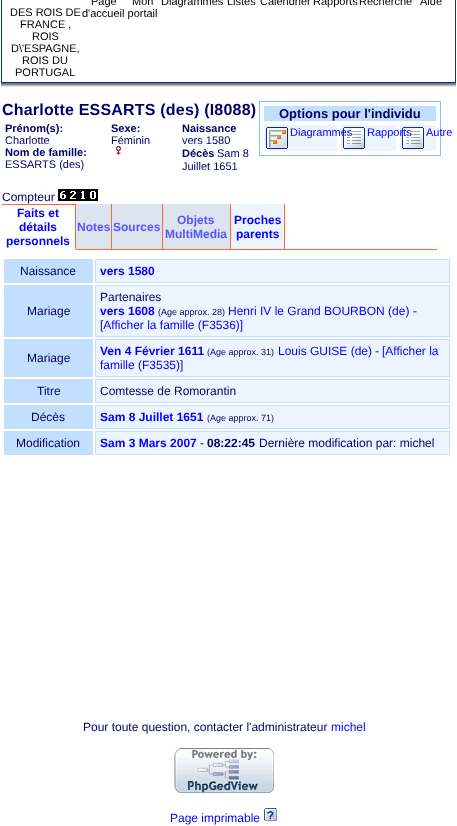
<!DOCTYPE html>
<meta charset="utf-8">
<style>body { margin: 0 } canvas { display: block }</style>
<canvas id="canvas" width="457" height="826"></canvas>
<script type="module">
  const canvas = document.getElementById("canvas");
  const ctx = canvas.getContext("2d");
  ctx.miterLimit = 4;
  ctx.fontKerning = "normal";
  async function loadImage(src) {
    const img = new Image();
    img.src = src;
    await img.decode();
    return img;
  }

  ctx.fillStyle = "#ffffff";
  ctx.fillRect(0, 0, 457, 826);
  ctx.fillStyle = "#003399";
  ctx.fillRect(1, 0, 455, 83);
  ctx.fillStyle = "#ffffff";
  ctx.fillRect(2, 0, 453, 82);
  ctx.font = "11px Liberation Sans";
  ctx.fillStyle = "#000000";
  ctx.fillText("Page", 91, 5);
  ctx.fillText("d'accueil portail", 82, 17);
  ctx.fillText("Mon", 132, 5);
  ctx.fillText("Diagrammes", 161, 5);
  ctx.fillText("Listes", 227, 5);
  ctx.fillText("Calendrier", 260, 5);
  ctx.fillText("Rapports", 313, 5);
  ctx.fillText("Recherche", 359, 5);
  ctx.fillText("Aide", 420, 5);
  ctx.fillText("DES ROIS DE", 10, 16);
  ctx.fillText("FRANCE ,", 20, 28);
  ctx.fillText("ROIS", 32, 40);
  ctx.fillText("D\\'ESPAGNE,", 11, 52);
  ctx.fillText("ROIS DU", 22, 64);
  ctx.fillText("PORTUGAL", 15, 76);
  ctx.drawImage(await loadImage("img1.png"), 1, 83, 455, 4);
  ctx.letterSpacing = "0.2px";
  ctx.font = "bold 16px Liberation Sans";
  ctx.fillStyle = "#000066";
  ctx.fillText("Charlotte ESSARTS (des) (I8088)", 2, 115);
  ctx.letterSpacing = "0px";
  ctx.font = "bold 11px Liberation Sans";
  ctx.fillText("Prénom(s):", 5, 132);
  ctx.font = "11px Liberation Sans";
  ctx.fillText("Charlotte", 5, 144);
  ctx.font = "bold 11px Liberation Sans";
  ctx.fillText("Nom de famille:", 5, 156);
  ctx.font = "11px Liberation Sans";
  ctx.fillText("ESSARTS (des)", 5, 168);
  ctx.font = "bold 11px Liberation Sans";
  ctx.fillText("Sexe:", 111, 132);
  ctx.font = "11px Liberation Sans";
  ctx.fillText("Féminin", 111, 144);
  ctx.drawImage(await loadImage("img2.png"), 116, 146, 5, 9);
  ctx.font = "bold 11px Liberation Sans";
  ctx.fillText("Naissance", 182, 132);
  ctx.font = "11px Liberation Sans";
  ctx.fillText("vers 1580", 182, 144);
  ctx.font = "bold 11px Liberation Sans";
  ctx.fillText("Décès", 182, 157);
  ctx.font = "11px Liberation Sans";
  ctx.fillText("Sam 8", 217, 157);
  ctx.fillText("Juillet 1651", 182, 170);
  ctx.font = "12px Liberation Sans";
  ctx.fillText("Compteur", 2, 201);
  ctx.drawImage(await loadImage("img3.png"), 58, 189, 10, 12);
  ctx.drawImage(await loadImage("img4.png"), 68, 189, 10, 12);
  ctx.drawImage(await loadImage("img5.png"), 78, 189, 10, 12);
  ctx.drawImage(await loadImage("img6.png"), 88, 189, 10, 12);
  ctx.strokeStyle = "#84beff";
  ctx.strokeRect(259.5, 101.5, 181, 54);
  ctx.fillStyle = "#c3dfff";
  ctx.fillRect(264, 106, 172, 15);
  ctx.font = "bold 13px Liberation Sans";
  ctx.fillStyle = "#000066";
  ctx.fillText("Options pour l'individu", 279, 118);
  ctx.fillStyle = "#ecf5ff";
  ctx.fillRect(264, 125, 73, 26);
  ctx.drawImage(await loadImage("img7.png"), 266, 127, 22, 22);
  ctx.fillRect(341, 125, 55, 26);
  ctx.drawImage(await loadImage("img8.png"), 343, 127, 22, 22);
  ctx.font = "11px Liberation Sans";
  ctx.fillStyle = "#0000ff";
  ctx.fillText("Diagrammes", 290, 136);
  ctx.fillStyle = "#ecf5ff";
  ctx.fillRect(400, 125, 36, 26);
  ctx.drawImage(await loadImage("img8.png"), 402, 127, 22, 22);
  ctx.fillStyle = "#0000ff";
  ctx.fillText("Rapports", 367, 136);
  ctx.fillText("Autre", 426, 136);
  ctx.fillStyle = "#ff6633";
  ctx.fillRect(2, 204, 74, 1);
  ctx.fillRect(75, 204, 1, 45);
  ctx.font = "bold 12px Liberation Sans";
  ctx.fillStyle = "#0000ff";
  ctx.fillText("Faits et", 17, 217);
  ctx.fillText("détails", 19, 231);
  ctx.fillText("personnels", 6, 245);
  ctx.fillStyle = "#dce5ef";
  ctx.fillRect(76, 204, 35, 45);
  ctx.fillStyle = "#ff6633";
  ctx.fillRect(111, 204, 1, 45);
  ctx.fillStyle = "#5555ff";
  ctx.fillText("Notes", 77, 231);
  ctx.fillStyle = "#dce5ef";
  ctx.fillRect(112, 204, 50, 45);
  ctx.fillStyle = "#ff6633";
  ctx.fillRect(162, 204, 1, 45);
  ctx.fillStyle = "#5555ff";
  ctx.fillText("Sources", 113, 231);
  ctx.fillStyle = "#dce5ef";
  ctx.fillRect(163, 204, 67, 45);
  ctx.fillStyle = "#ff6633";
  ctx.fillRect(230, 204, 1, 45);
  ctx.fillStyle = "#5555ff";
  ctx.fillText("Objets", 177, 224);
  ctx.fillText("MultiMedia", 165, 238);
  ctx.fillStyle = "#ecf5ff";
  ctx.fillRect(231, 204, 53, 45);
  ctx.fillStyle = "#ff6633";
  ctx.fillRect(284, 204, 1, 45);
  ctx.fillStyle = "#0000ff";
  ctx.fillText("Proches", 234, 224);
  ctx.fillText("parents", 236, 238);
  ctx.fillStyle = "#ff6633";
  ctx.fillRect(76, 249, 361, 1);
  ctx.fillStyle = "#c3dfff";
  ctx.fillRect(4, 259, 89, 24);
  ctx.font = "12px Liberation Sans";
  ctx.fillStyle = "#000066";
  ctx.fillText("Naissance", 20, 275);
  ctx.fillStyle = "#ecf5ff";
  ctx.beginPath();
  ctx.rect(95.5, 259.5, 354, 23);
  ctx.fill();
  ctx.strokeStyle = "#c3dfff";
  ctx.stroke();
  ctx.font = "bold 12px Liberation Sans";
  ctx.fillStyle = "#0000ff";
  ctx.fillText("vers 1580", 100, 275);
  ctx.fillStyle = "#c3dfff";
  ctx.fillRect(4, 285, 89, 52);
  ctx.font = "12px Liberation Sans";
  ctx.fillStyle = "#000066";
  ctx.fillText("Mariage", 27, 315);
  ctx.fillStyle = "#ecf5ff";
  ctx.beginPath();
  ctx.rect(95.5, 285.5, 354, 51);
  ctx.fill();
  ctx.stroke();
  ctx.fillStyle = "#000066";
  ctx.fillText("Partenaires", 100, 301);
  ctx.font = "bold 12px Liberation Sans";
  ctx.fillStyle = "#0000ff";
  ctx.fillText("vers 1608", 100, 315);
  ctx.font = "9px Liberation Sans";
  ctx.fillStyle = "#000066";
  ctx.fillText("(Age approx. 28)", 158, 315);
  ctx.font = "12px Liberation Sans";
  ctx.fillStyle = "#0000ff";
  ctx.fillText("Henri IV le Grand BOURBON (de)", 228, 315);
  ctx.fillStyle = "#000066";
  ctx.fillText("-", 413, 315);
  ctx.fillStyle = "#0000ff";
  ctx.fillText("[Afficher la famille (F3536)]", 100, 329);
  ctx.fillStyle = "#c3dfff";
  ctx.fillRect(4, 339, 89, 38);
  ctx.fillStyle = "#000066";
  ctx.fillText("Mariage", 27, 362);
  ctx.fillStyle = "#ecf5ff";
  ctx.beginPath();
  ctx.rect(95.5, 339.5, 354, 37);
  ctx.fill();
  ctx.stroke();
  ctx.font = "bold 12px Liberation Sans";
  ctx.fillStyle = "#0000ff";
  ctx.fillText("Ven 4 Février 1611", 100, 355);
  ctx.font = "9px Liberation Sans";
  ctx.fillStyle = "#000066";
  ctx.fillText("(Age approx. 31)", 207, 355);
  ctx.font = "12px Liberation Sans";
  ctx.fillStyle = "#0000ff";
  ctx.fillText("Louis GUISE (de)", 278, 355);
  ctx.fillStyle = "#000066";
  ctx.fillText("-", 375, 355);
  ctx.fillStyle = "#0000ff";
  ctx.fillText("[Afficher la", 382, 355);
  ctx.fillText("famille (F3535)]", 100, 369);
  ctx.fillStyle = "#c3dfff";
  ctx.fillRect(4, 379, 89, 24);
  ctx.fillStyle = "#000066";
  ctx.fillText("Titre", 37, 395);
  ctx.fillStyle = "#ecf5ff";
  ctx.beginPath();
  ctx.rect(95.5, 379.5, 354, 23);
  ctx.fill();
  ctx.stroke();
  ctx.fillStyle = "#000066";
  ctx.fillText("Comtesse de Romorantin", 100, 395);
  ctx.fillStyle = "#c3dfff";
  ctx.fillRect(4, 405, 89, 24);
  ctx.fillStyle = "#000066";
  ctx.fillText("Décès", 31, 421);
  ctx.fillStyle = "#ecf5ff";
  ctx.beginPath();
  ctx.rect(95.5, 405.5, 354, 23);
  ctx.fill();
  ctx.stroke();
  ctx.font = "bold 12px Liberation Sans";
  ctx.fillStyle = "#0000ff";
  ctx.fillText("Sam 8 Juillet 1651", 100, 421);
  ctx.font = "9px Liberation Sans";
  ctx.fillStyle = "#000066";
  ctx.fillText("(Age approx. 71)", 207, 421);
  ctx.fillStyle = "#c3dfff";
  ctx.fillRect(4, 431, 89, 24);
  ctx.font = "12px Liberation Sans";
  ctx.fillStyle = "#000066";
  ctx.fillText("Modification", 16, 447);
  ctx.fillStyle = "#ecf5ff";
  ctx.beginPath();
  ctx.rect(95.5, 431.5, 354, 23);
  ctx.fill();
  ctx.stroke();
  ctx.font = "bold 12px Liberation Sans";
  ctx.fillStyle = "#0000ff";
  ctx.fillText("Sam 3 Mars 2007", 100, 447);
  ctx.font = "12px Liberation Sans";
  ctx.fillStyle = "#000066";
  ctx.fillText("-", 200, 447);
  ctx.font = "bold 12px Liberation Sans";
  ctx.fillText("08:22:45", 207, 447);
  ctx.font = "12px Liberation Sans";
  ctx.fillText("Dernière modification par: michel", 259, 447);
  ctx.fillText("Pour toute question, contacter l'administrateur", 83, 731);
  ctx.fillStyle = "#0000ff";
  ctx.fillText("michel", 331, 731);
  ctx.drawImage(await loadImage("img9.png"), 174, 748, 100, 45);
  ctx.fillText("Page imprimable", 170, 822);
  ctx.drawImage(await loadImage("img10.png"), 264, 808, 13, 13);
</script>
